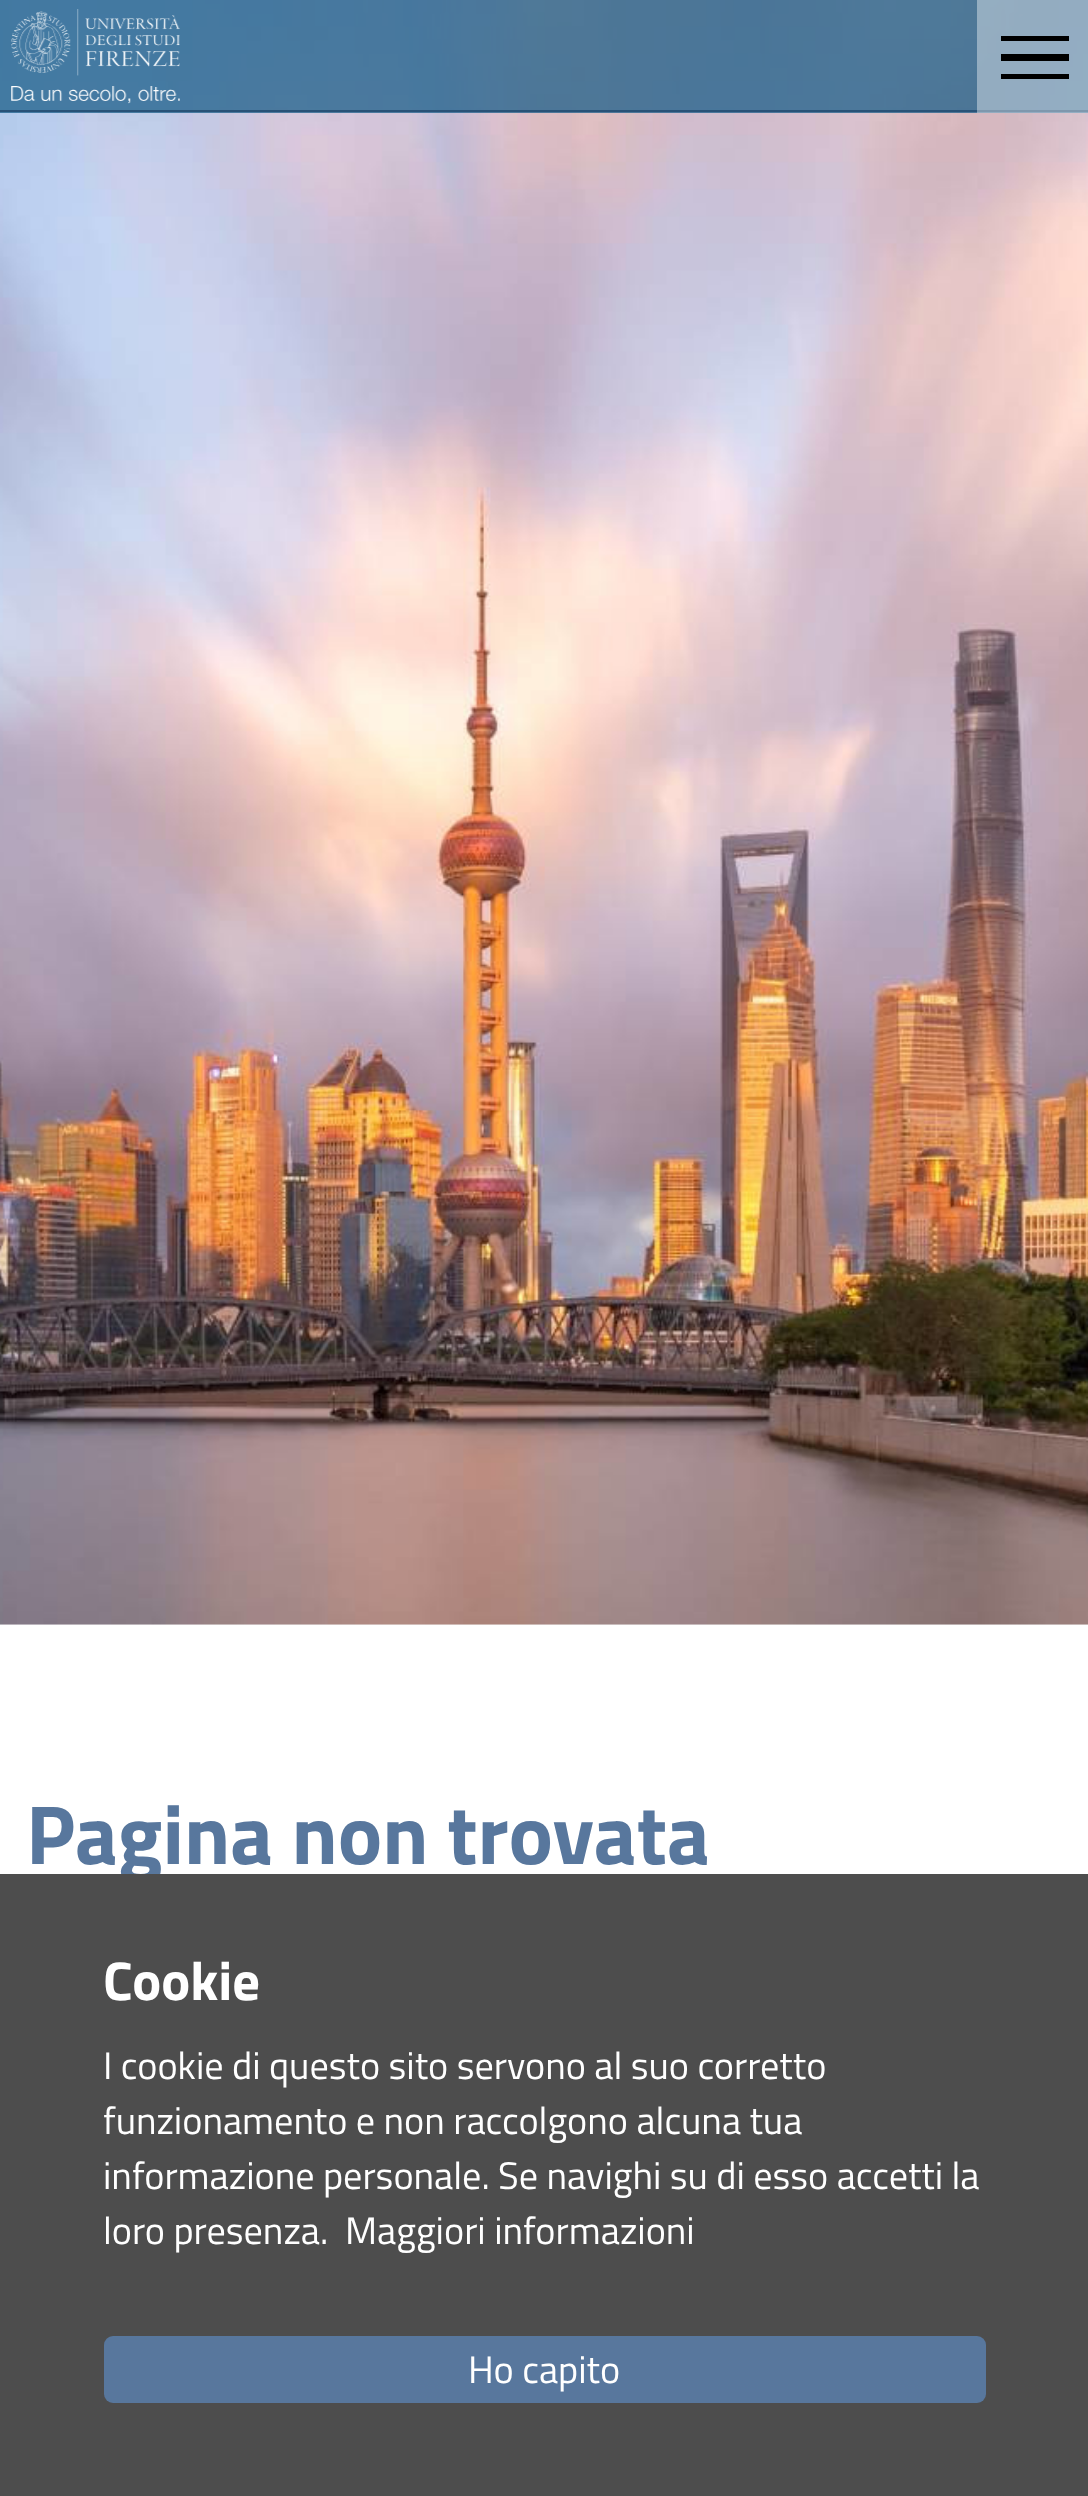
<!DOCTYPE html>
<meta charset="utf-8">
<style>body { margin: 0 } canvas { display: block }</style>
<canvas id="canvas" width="1088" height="2496"></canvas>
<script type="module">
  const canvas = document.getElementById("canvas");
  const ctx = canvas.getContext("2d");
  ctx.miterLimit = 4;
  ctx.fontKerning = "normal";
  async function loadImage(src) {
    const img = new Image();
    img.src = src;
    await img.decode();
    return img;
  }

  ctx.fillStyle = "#f2f2f2";
  ctx.fillRect(0, 0, 1088, 2496);
  ctx.drawImage(await loadImage("img2.png"), 0, 0, 1088, 1625);
  ctx.fillStyle = "rgba(28, 95, 137, 0.75)";
  ctx.fillRect(0, 0, 1088, 113);
  ctx.fillStyle = "#285277";
  ctx.fillRect(0, 110, 1088, 2);
  ctx.drawImage(await loadImage("img1.png"), 11, 9, 169, 95);
  ctx.fillStyle = "rgba(255, 255, 255, 0.4)";
  ctx.fillRect(977, 0, 111, 113);
  ctx.fillStyle = "#000000";
  ctx.fillRect(1001, 36, 68, 5);
  ctx.fillRect(1001, 54, 68, 7);
  ctx.fillRect(1001, 74, 68, 5);
  ctx.fillStyle = "#ffffff";
  ctx.fillRect(0, 1625, 1088, 249);
  ctx.font = "bold 83.75px Titillium Web";
  ctx.fillStyle = "#58779d";
  ctx.fillText("Pagina non trovata", 26, 1864);
  ctx.fillStyle = "#4d4d4d";
  ctx.fillRect(0, 1874, 1088, 622);
  ctx.font = "bold 54.5px Titillium Web";
  ctx.fillStyle = "#ffffff";
  ctx.fillText("Cookie", 103, 2000);
  ctx.font = "38.25px Titillium Web";
  ctx.fillText("I cookie di questo sito servono al suo corretto", 103, 2079);
  ctx.fillText("funzionamento e non raccolgono alcuna tua", 103, 2134);
  ctx.fillText("informazione personale. Se navighi su di esso accetti la", 103, 2189);
  ctx.fillText("loro presenza.", 103, 2244);
  ctx.fillText("Maggiori informazioni", 345, 2244);
  ctx.fillStyle = "#58779d";
  ctx.beginPath();
  ctx.roundRect(104, 2336, 882, 67, 9);
  ctx.fill();
  ctx.fillStyle = "#ffffff";
  ctx.fillText("Ho capito", 468, 2383);
</script>
